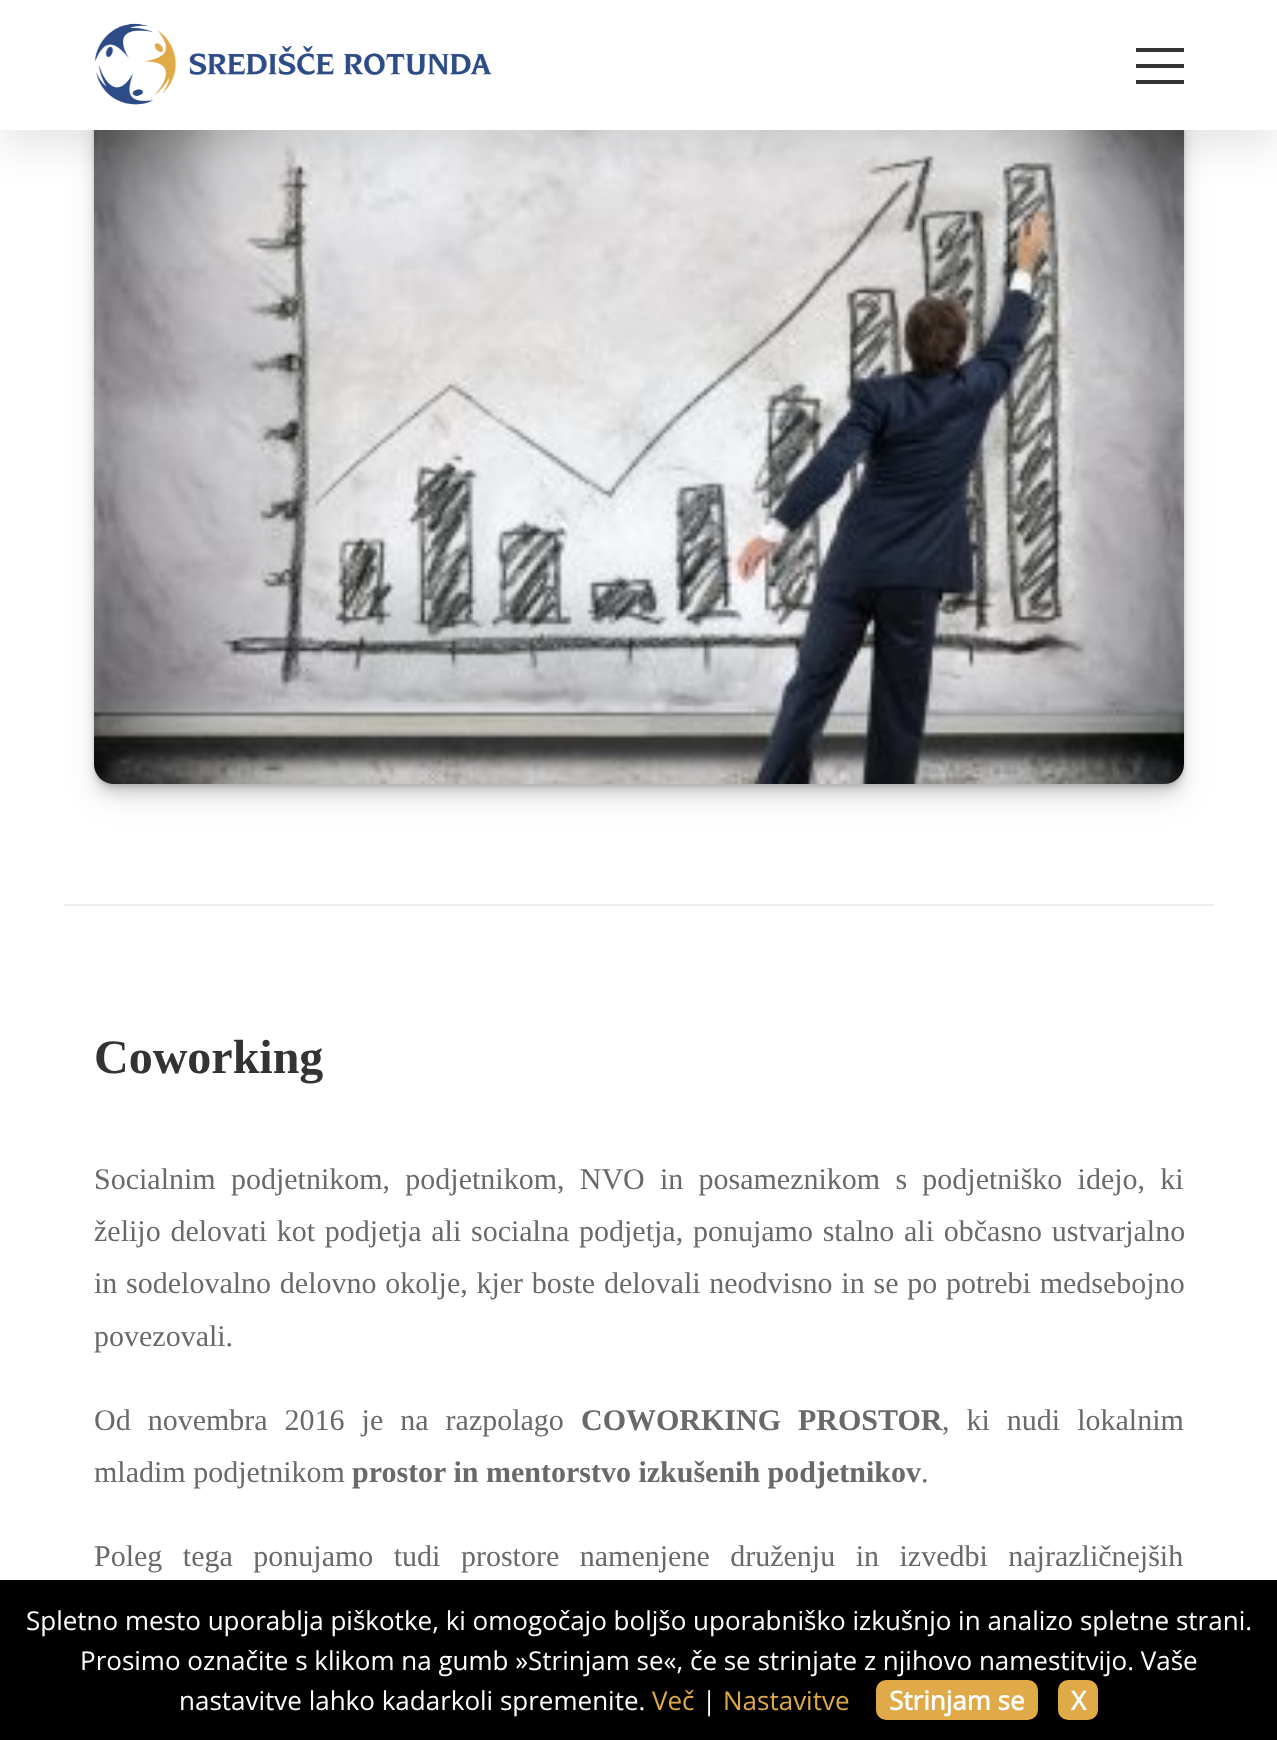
<!DOCTYPE html>
<meta charset="utf-8">
<style>body { margin: 0 } canvas { display: block }</style>
<canvas id="canvas" width="1277" height="1740"></canvas>
<script type="module">
  const canvas = document.getElementById("canvas");
  const ctx = canvas.getContext("2d");
  ctx.miterLimit = 4;
  ctx.fontKerning = "normal";
  async function loadImage(src) {
    const img = new Image();
    img.src = src;
    await img.decode();
    return img;
  }

  ctx.fillStyle = "#ffffff";
  ctx.fillRect(0, 0, 1277, 1740);
  ctx.fillStyle = "rgba(0, 0, 0, 0.07)";
  ctx.filter = "blur(16px)";
  ctx.beginPath();
  ctx.roundRect(94, 118, 1090, 682, 20);
  ctx.fill();
  ctx.filter = "none";
  ctx.filter = "blur(8px)";
  ctx.beginPath();
  ctx.roundRect(94, 114, 1090, 682, 20);
  ctx.fill();
  ctx.filter = "none";
  ctx.filter = "blur(4px)";
  ctx.beginPath();
  ctx.roundRect(94, 110, 1090, 682, 20);
  ctx.fill();
  ctx.filter = "none";
  ctx.filter = "blur(2px)";
  ctx.beginPath();
  ctx.roundRect(94, 106, 1090, 682, 20);
  ctx.fill();
  ctx.filter = "none";
  ctx.filter = "blur(1px)";
  ctx.beginPath();
  ctx.roundRect(94, 104, 1090, 682, 20);
  ctx.fill();
  ctx.filter = "none";
  ctx.drawImage(await loadImage("img2.png"), 94, 130, 1090, 654);
  ctx.fillStyle = "rgba(0, 0, 0, 0.1)";
  ctx.filter = "blur(20px)";
  ctx.beginPath();
  ctx.rect(0, 16, 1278, 130);
  ctx.fill();
  ctx.filter = "none";
  ctx.fillStyle = "#ffffff";
  ctx.fillRect(0, 0, 1277, 130);
  ctx.drawImage(await loadImage("img1.png"), 94, 23, 398, 82);
  ctx.fillStyle = "#333333";
  ctx.fillRect(1136, 64, 48, 4);
  ctx.fillRect(1136, 48, 48, 4);
  ctx.fillRect(1136, 80, 48, 4);
  ctx.fillStyle = "#ededed";
  ctx.fillRect(64, 904, 1150, 2);
  ctx.font = "bold 48px Liberation Serif";
  ctx.fillStyle = "#333333";
  ctx.fillText("Coworking", 94, 1073);
  ctx.wordSpacing = "7.75px";
  ctx.font = "30px Liberation Serif";
  ctx.fillStyle = "#696969";
  ctx.fillText("Socialnim podjetnikom, podjetnikom, NVO in posameznikom s podjetniško idejo, ki", 94, 1189);
  ctx.wordSpacing = "2.25px";
  ctx.fillText("želijo delovati kot podjetja ali socialna podjetja, ponujamo stalno ali občasno ustvarjalno", 94, 1241);
  ctx.wordSpacing = "1.25px";
  ctx.fillText("in sodelovalno delovno okolje, kjer boste delovali neodvisno in se po potrebi medsebojno", 94, 1293);
  ctx.wordSpacing = "0px";
  ctx.fillText("povezovali.", 94, 1346);
  ctx.wordSpacing = "9.5px";
  ctx.fillText("Od novembra 2016 je na razpolago", 94, 1430);
  ctx.font = "bold 30px Liberation Serif";
  ctx.fillText("COWORKING PROSTOR", 581, 1430);
  ctx.font = "30px Liberation Serif";
  ctx.fillText(", ki nudi lokalnim", 942, 1430);
  ctx.wordSpacing = "0px";
  ctx.fillText("mladim podjetnikom", 94, 1482);
  ctx.font = "bold 30px Liberation Serif";
  ctx.fillText("prostor in mentorstvo izkušenih podjetnikov", 352, 1482);
  ctx.font = "30px Liberation Serif";
  ctx.fillText(".", 921, 1482);
  ctx.wordSpacing = "13px";
  ctx.fillText("Poleg tega ponujamo tudi prostore namenjene druženju in izvedbi najrazličnejših", 94, 1566);
  ctx.fillStyle = "#000000";
  ctx.fillRect(0, 1580, 1277, 160);
  ctx.wordSpacing = "0px";
  ctx.font = "26px Open Sans";
  ctx.fillStyle = "#ffffff";
  ctx.fillText("Spletno mesto uporablja piškotke, ki omogočajo boljšo uporabniško izkušnjo in analizo spletne strani.", 26, 1630);
  ctx.fillText("Prosimo označite s klikom na gumb »Strinjam se«, če se strinjate z njihovo namestitvijo. Vaše", 80, 1670);
  ctx.fillText("nastavitve lahko kadarkoli spremenite.", 179, 1710);
  ctx.fillStyle = "#dfaa47";
  ctx.fillText("Več", 652, 1710);
  ctx.fillStyle = "#ffffff";
  ctx.fillText("|", 702, 1710);
  ctx.fillStyle = "#dfaa47";
  ctx.fillText("Nastavitve", 723, 1710);
  ctx.beginPath();
  ctx.roundRect(876, 1680, 162, 40, 10);
  ctx.fill();
  ctx.font = "bold 26px Open Sans";
  ctx.fillStyle = "#ffffff";
  ctx.fillText("Strinjam se", 889, 1710);
  ctx.fillStyle = "#dfaa47";
  ctx.beginPath();
  ctx.roundRect(1058, 1680, 40, 40, 10);
  ctx.fill();
  ctx.fillStyle = "#ffffff";
  ctx.fillText("X", 1071, 1710);
</script>
